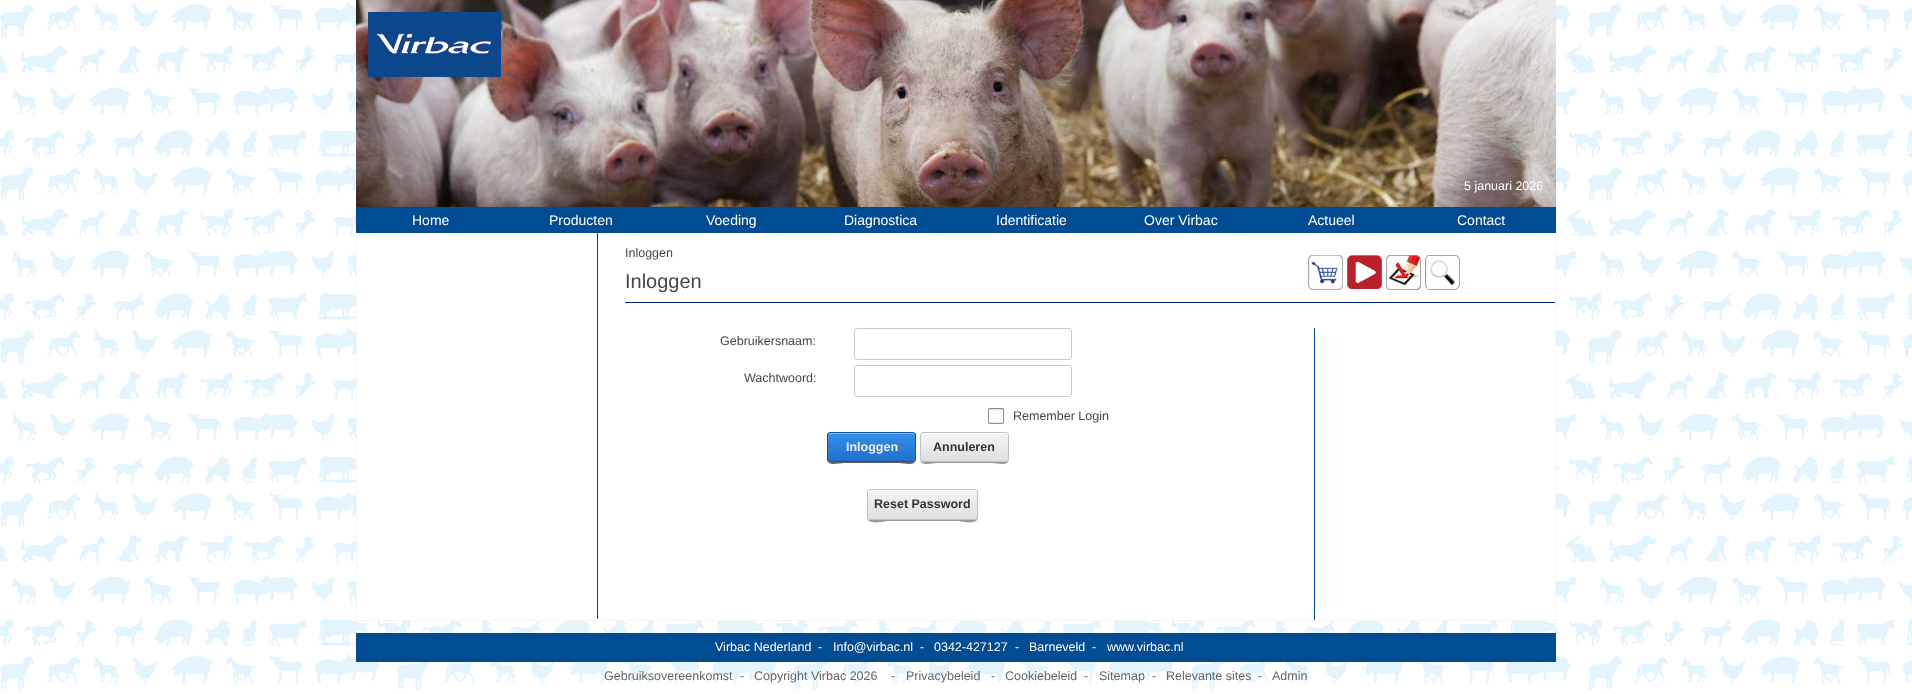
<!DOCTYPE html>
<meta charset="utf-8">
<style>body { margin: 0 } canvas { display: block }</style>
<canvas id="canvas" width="1912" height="694"></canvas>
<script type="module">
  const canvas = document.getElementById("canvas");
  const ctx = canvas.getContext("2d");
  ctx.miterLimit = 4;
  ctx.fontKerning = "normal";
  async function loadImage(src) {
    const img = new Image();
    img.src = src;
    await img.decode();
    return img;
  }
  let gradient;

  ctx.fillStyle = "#ffffff";
  ctx.fillRect(0, 0, 1912, 694);
  ctx.drawImage(await loadImage("img1.png"), 0, 2, 1912, 688);
  ctx.drawImage(await loadImage("img2.png"), 356, 0, 1200, 207);
  ctx.drawImage(await loadImage("img3.png"), 368, 12, 133, 65);
  ctx.font = "12.5px Liberation Sans";
  ctx.fillText("5 januari 2026", 1464, 190);
  ctx.fillStyle = "#004c93";
  ctx.fillRect(356, 207, 1200, 26);
  ctx.font = "14px Liberation Sans";
  ctx.fillStyle = "#ffffff";
  ctx.fillText("Home", 412, 225);
  ctx.fillText("Producten", 549, 225);
  ctx.fillText("Voeding", 706, 225);
  ctx.fillText("Diagnostica", 844, 225);
  ctx.fillText("Identificatie", 996, 225);
  ctx.fillText("Over Virbac", 1144, 225);
  ctx.fillText("Actueel", 1308, 225);
  ctx.fillText("Contact", 1457, 225);
  ctx.fillStyle = "#f5f5f5";
  ctx.fillRect(1555, 233, 1, 388);
  ctx.fillRect(356, 620, 1200, 1);
  ctx.fillRect(356, 233, 1, 388);
  ctx.fillStyle = "#ffffff";
  ctx.fillRect(357, 233, 1198, 387);
  ctx.fillStyle = "#004c93";
  ctx.fillRect(597, 233, 1, 386);
  ctx.fillStyle = "#002275";
  ctx.fillRect(625, 302, 930, 1);
  ctx.font = "12.5px Liberation Sans";
  ctx.fillStyle = "#474747";
  ctx.fillText("Inloggen", 625, 257);
  ctx.font = "20px Liberation Sans";
  ctx.fillText("Inloggen", 625, 288);
  ctx.drawImage(await loadImage("img4.png"), 1308, 255, 35, 35);
  ctx.drawImage(await loadImage("img5.png"), 1347, 255, 35, 34);
  ctx.drawImage(await loadImage("img6.png"), 1386, 255, 35, 35);
  ctx.drawImage(await loadImage("img7.png"), 1425, 255, 35, 35);
  ctx.font = "12.5px Liberation Sans";
  ctx.fillText("Gebruikersnaam:", 720, 345);
  ctx.beginPath();
  ctx.roundRect(854.5, 328.5, 217, 31, 2.5);
  ctx.strokeStyle = "#c9c9c9";
  ctx.stroke();
  ctx.fillText("Wachtwoord:", 744, 382);
  ctx.beginPath();
  ctx.roundRect(854.5, 365.5, 217, 31, 2.5);
  ctx.stroke();
  ctx.drawImage(await loadImage("img8.png"), 988, 408, 16, 16);
  ctx.fillText("Remember Login", 1013, 420);
  ctx.fillStyle = "#666666";
  ctx.beginPath();
  ctx.moveTo(827, 459);
  ctx.bezierCurveTo(827, 467, 840, 463, 844, 463);
  ctx.lineTo(899, 463);
  ctx.bezierCurveTo(903, 463, 916, 467, 916, 459);
  ctx.bezierCurveTo(916, 461, 915, 462, 913, 462);
  ctx.lineTo(830, 462);
  ctx.bezierCurveTo(828, 462, 827, 461, 827, 459);
  ctx.closePath();
  ctx.fill();
  ctx.save();
  ctx.beginPath();
  ctx.roundRect(827, 432, 89, 30, 3);
  ctx.clip();
  gradient = ctx.createLinearGradient(872, 433, 872, 461);
  gradient.addColorStop(0, "#358eea");
  gradient.addColorStop(1, "#2170cd");
  ctx.fillStyle = gradient;
  ctx.fillRect(827, 433, 89, 28);
  ctx.restore();
  ctx.fillStyle = "rgba(255, 255, 255, 0.4)";
  ctx.beginPath();
  ctx.moveTo(830, 434);
  ctx.lineTo(913, 434);
  ctx.bezierCurveTo(914, 434, 915, 435, 915, 436);
  ctx.bezierCurveTo(915, 429, 902, 433, 899, 433);
  ctx.lineTo(844, 433);
  ctx.bezierCurveTo(841, 433, 828, 429, 828, 436);
  ctx.bezierCurveTo(828, 435, 829, 434, 830, 434);
  ctx.closePath();
  ctx.fill();
  ctx.beginPath();
  ctx.roundRect(827.5, 432.5, 88, 29, 2.5);
  ctx.strokeStyle = "#0d569e";
  ctx.stroke();
  ctx.font = "bold 12.5px Liberation Sans";
  ctx.fillStyle = "#efefef";
  ctx.fillText("Inloggen", 846, 451);
  ctx.fillStyle = "#999999";
  ctx.beginPath();
  ctx.moveTo(920, 459);
  ctx.bezierCurveTo(920, 467, 933, 463, 937, 463);
  ctx.lineTo(992, 463);
  ctx.bezierCurveTo(996, 463, 1009, 467, 1009, 459);
  ctx.bezierCurveTo(1009, 461, 1008, 462, 1006, 462);
  ctx.lineTo(923, 462);
  ctx.bezierCurveTo(921, 462, 920, 461, 920, 459);
  ctx.closePath();
  ctx.fill();
  ctx.save();
  ctx.beginPath();
  ctx.roundRect(920, 432, 89, 30, 3);
  ctx.clip();
  gradient = ctx.createLinearGradient(965, 433, 965, 461);
  gradient.addColorStop(0, "#f5f5f5");
  gradient.addColorStop(1, "#dfdfdf");
  ctx.fillStyle = gradient;
  ctx.fillRect(920, 433, 89, 28);
  ctx.restore();
  ctx.fillStyle = "#ffffff";
  ctx.beginPath();
  ctx.moveTo(923, 434);
  ctx.lineTo(1006, 434);
  ctx.bezierCurveTo(1007, 434, 1008, 435, 1008, 436);
  ctx.bezierCurveTo(1008, 429, 995, 433, 992, 433);
  ctx.lineTo(937, 433);
  ctx.bezierCurveTo(934, 433, 921, 429, 921, 436);
  ctx.bezierCurveTo(921, 435, 922, 434, 923, 434);
  ctx.closePath();
  ctx.fill();
  ctx.beginPath();
  ctx.roundRect(920.5, 432.5, 88, 29, 2.5);
  ctx.strokeStyle = "#c2c2c2";
  ctx.stroke();
  ctx.fillStyle = "#333333";
  ctx.fillText("Annuleren", 933, 451);
  ctx.fillStyle = "#999999";
  ctx.beginPath();
  ctx.moveTo(867, 517);
  ctx.bezierCurveTo(867, 526, 885, 521, 888, 521);
  ctx.lineTo(958, 521);
  ctx.bezierCurveTo(960, 521, 978, 526, 978, 517);
  ctx.lineTo(977, 519);
  ctx.lineTo(975, 520);
  ctx.lineTo(870, 520);
  ctx.bezierCurveTo(868, 520, 867, 519, 867, 517);
  ctx.closePath();
  ctx.fill();
  ctx.save();
  ctx.beginPath();
  ctx.roundRect(867, 489, 111, 31, 3);
  ctx.clip();
  gradient = ctx.createLinearGradient(923, 490, 923, 519);
  gradient.addColorStop(0, "#f5f5f5");
  gradient.addColorStop(1, "#dfdfdf");
  ctx.fillStyle = gradient;
  ctx.fillRect(867, 490, 111, 29);
  ctx.restore();
  ctx.fillStyle = "#ffffff";
  ctx.beginPath();
  ctx.moveTo(870, 491);
  ctx.lineTo(975, 491);
  ctx.bezierCurveTo(976, 491, 977, 492, 977, 493);
  ctx.bezierCurveTo(977, 492, 977, 490, 975, 490);
  ctx.lineTo(870, 490);
  ctx.bezierCurveTo(868, 490, 868, 492, 868, 493);
  ctx.bezierCurveTo(868, 492, 869, 491, 870, 491);
  ctx.closePath();
  ctx.fill();
  ctx.beginPath();
  ctx.roundRect(867.5, 489.5, 110, 30, 2.5);
  ctx.stroke();
  ctx.fillStyle = "#333333";
  ctx.fillText("Reset Password", 874, 508);
  ctx.fillStyle = "#004c93";
  ctx.fillRect(1314, 328, 1, 292);
  ctx.fillRect(356, 633, 1200, 29);
  ctx.font = "12.5px Liberation Sans";
  ctx.fillStyle = "#ffffff";
  ctx.fillText("Virbac Nederland", 715, 651);
  ctx.fillText("-", 818, 651);
  ctx.fillText("Info@virbac.nl", 833, 651);
  ctx.fillText("-", 920, 651);
  ctx.fillText("0342-427127", 934, 651);
  ctx.fillText("-", 1015, 651);
  ctx.fillText("Barneveld", 1029, 651);
  ctx.fillText("-", 1092, 651);
  ctx.fillText("www.virbac.nl", 1107, 651);
  ctx.fillStyle = "#666666";
  ctx.fillText("Gebruiksovereenkomst", 604, 680);
  ctx.fillText("-", 740, 680);
  ctx.fillText("Copyright Virbac 2026", 754, 680);
  ctx.fillText("-", 891, 680);
  ctx.fillText("Privacybeleid", 906, 680);
  ctx.fillText("-", 991, 680);
  ctx.fillText("Cookiebeleid", 1005, 680);
  ctx.fillText("-", 1084, 680);
  ctx.fillText("Sitemap", 1099, 680);
  ctx.fillText("-", 1152, 680);
  ctx.fillText("Relevante sites", 1166, 680);
  ctx.fillText("-", 1258, 680);
  ctx.fillText("Admin", 1272, 680);
</script>
